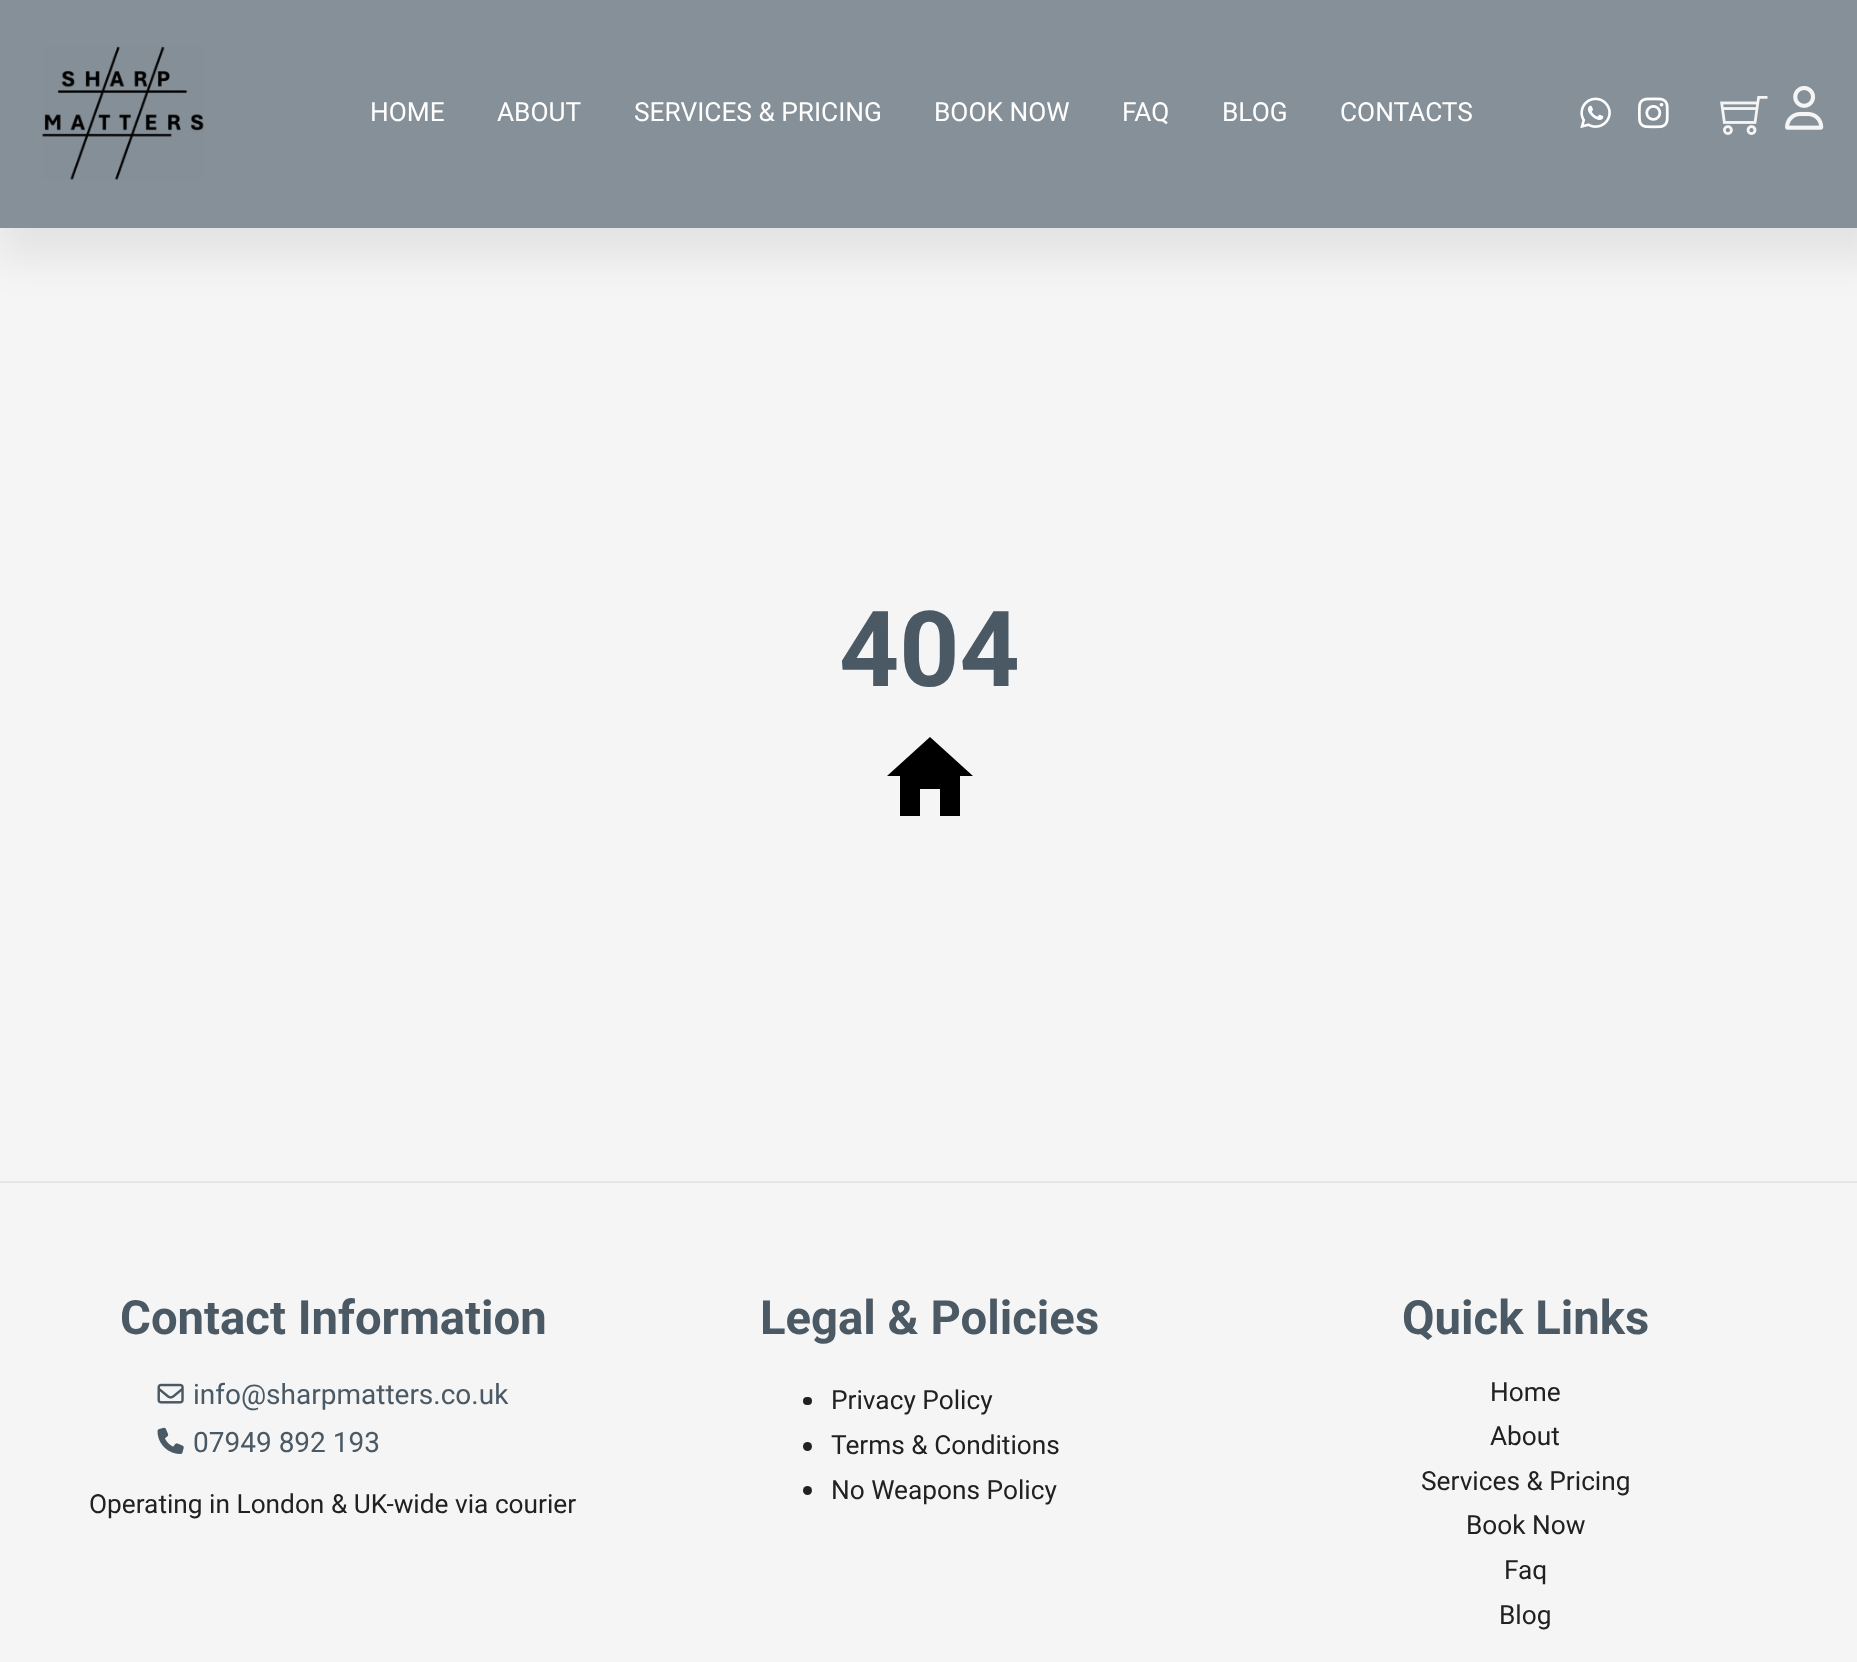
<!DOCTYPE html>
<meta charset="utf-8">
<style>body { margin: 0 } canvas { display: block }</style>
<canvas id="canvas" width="1857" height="1662"></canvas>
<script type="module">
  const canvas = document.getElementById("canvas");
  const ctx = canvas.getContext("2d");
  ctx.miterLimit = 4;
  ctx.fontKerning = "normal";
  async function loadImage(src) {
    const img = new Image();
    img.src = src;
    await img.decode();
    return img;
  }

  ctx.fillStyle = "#f5f5f5";
  ctx.fillRect(0, 0, 1857, 1662);
  ctx.fillStyle = "rgba(0, 0, 0, 0.07)";
  ctx.filter = "blur(21px)";
  ctx.beginPath();
  ctx.rect(-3, -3, 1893, 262);
  ctx.fill();
  ctx.filter = "none";
  ctx.fillStyle = "#869098";
  ctx.fillRect(0, 0, 1857, 228);
  ctx.drawImage(await loadImage("img1.png"), 42, 46, 162, 134);
  ctx.font = "26.25px Roboto";
  ctx.fillStyle = "#ffffff";
  ctx.fillText("HOME", 370, 121);
  ctx.fillText("ABOUT", 497, 121);
  ctx.fillText("SERVICES & PRICING", 634, 121);
  ctx.fillText("BOOK NOW", 934, 121);
  ctx.fillText("FAQ", 1122, 121);
  ctx.fillText("BLOG", 1222, 121);
  ctx.fillText("CONTACTS", 1340, 121);
  ctx.drawImage(await loadImage("img2.png"), 1580, 97, 31, 32);
  ctx.drawImage(await loadImage("img3.png"), 1638, 97, 31, 32);
  ctx.drawImage(await loadImage("img4.png"), 1720, 96, 48, 39);
  ctx.drawImage(await loadImage("img5.png"), 1785, 86, 39, 44);
  ctx.font = "bold 105px Roboto";
  ctx.fillStyle = "#4a5964";
  ctx.fillText("404", 839, 686);
  ctx.fillStyle = "#000000";
  ctx.beginPath();
  ctx.moveTo(920, 816);
  ctx.lineTo(900, 816);
  ctx.lineTo(900, 776);
  ctx.lineTo(887, 776);
  ctx.lineTo(930, 737);
  ctx.lineTo(973, 776);
  ctx.lineTo(960, 776);
  ctx.lineTo(960, 816);
  ctx.lineTo(940, 816);
  ctx.lineTo(940, 789);
  ctx.lineTo(920, 789);
  ctx.closePath();
  ctx.fill();
  ctx.fillStyle = "#e5e5e5";
  ctx.fillRect(0, 1181, 1857, 2);
  ctx.font = "bold 47.25px Roboto";
  ctx.fillStyle = "#4a5964";
  ctx.fillText("Contact Information", 120, 1334);
  ctx.drawImage(await loadImage("img6.png"), 157, 1383, 27, 21);
  ctx.font = "28px Roboto";
  ctx.fillText("info@sharpmatters.co.uk", 193, 1404);
  ctx.drawImage(await loadImage("img7.png"), 157, 1427, 27, 27);
  ctx.fillText("07949 892 193", 193, 1452);
  ctx.font = "26.25px Roboto";
  ctx.fillStyle = "#212121";
  ctx.fillText("Operating in London & UK-wide via courier", 89, 1513);
  ctx.font = "bold 47.25px Roboto";
  ctx.fillStyle = "#4a5964";
  ctx.fillText("Legal & Policies", 760, 1334);
  ctx.fillStyle = "#212121";
  ctx.beginPath();
  ctx.roundRect(803, 1397, 9, 8, 4);
  ctx.fill();
  ctx.font = "26.25px Roboto";
  ctx.fillText("Privacy Policy", 831, 1409);
  ctx.beginPath();
  ctx.arc(807.5, 1446.5, 4.5, 0, Math.PI * 2);
  ctx.fill();
  ctx.fillText("Terms & Conditions", 831, 1454);
  ctx.beginPath();
  ctx.arc(807.5, 1490.5, 4.5, 0, Math.PI * 2);
  ctx.fill();
  ctx.fillText("No Weapons Policy", 831, 1499);
  ctx.font = "bold 47.25px Roboto";
  ctx.fillStyle = "#4a5964";
  ctx.fillText("Quick Links", 1402, 1334);
  ctx.font = "26.25px Roboto";
  ctx.fillStyle = "#212121";
  ctx.fillText("Home", 1490, 1401);
  ctx.fillText("About", 1490, 1445);
  ctx.fillText("Services & Pricing", 1421, 1490);
  ctx.fillText("Book Now", 1466, 1534);
  ctx.fillText("Faq", 1504, 1579);
  ctx.fillText("Blog", 1499, 1624);
</script>
